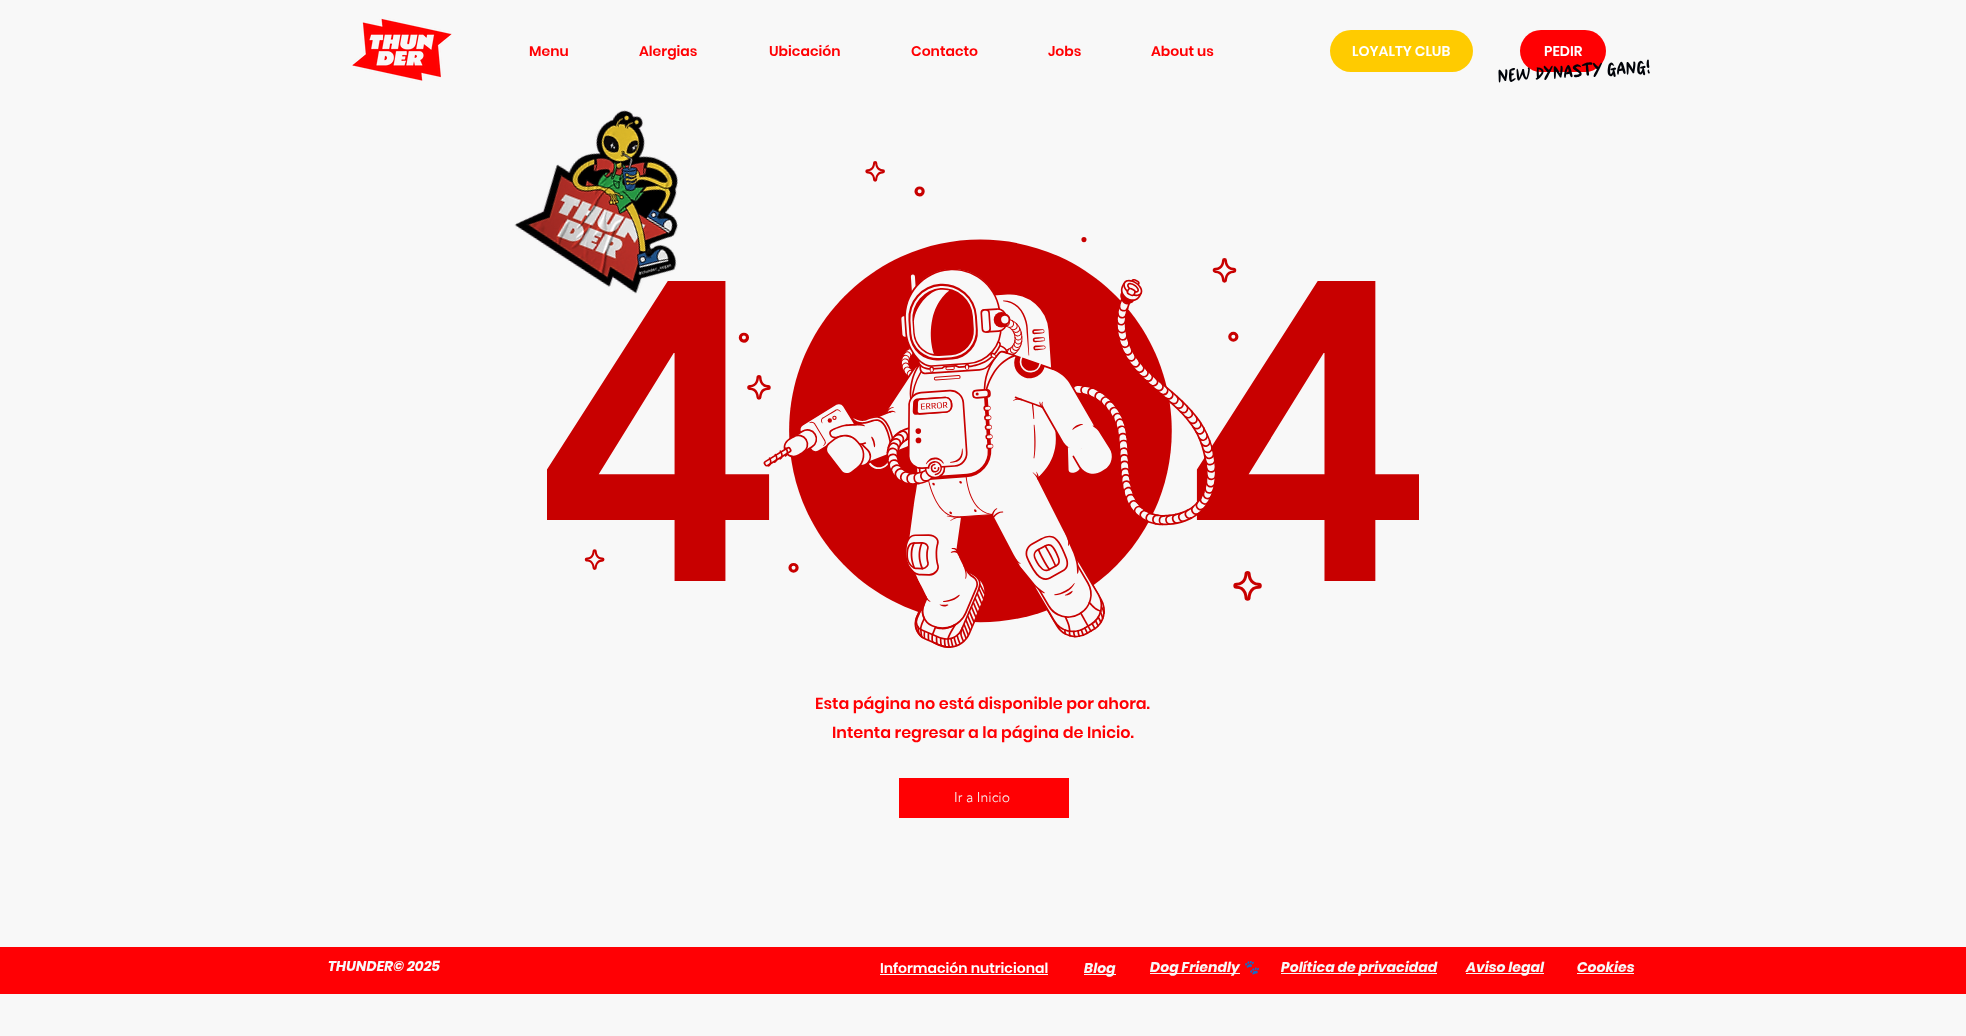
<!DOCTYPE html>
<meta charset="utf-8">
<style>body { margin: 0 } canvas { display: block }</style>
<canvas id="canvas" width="1966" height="1036"></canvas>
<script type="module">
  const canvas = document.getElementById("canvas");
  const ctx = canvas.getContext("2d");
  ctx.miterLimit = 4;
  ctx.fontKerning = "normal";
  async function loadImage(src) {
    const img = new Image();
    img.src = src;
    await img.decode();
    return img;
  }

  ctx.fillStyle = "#f8f8f8";
  ctx.fillRect(0, 0, 1966, 1036);
  ctx.drawImage(await loadImage("img1.png"), 352, 18, 100, 63);
  ctx.font = "600 14px Poppins";
  ctx.fillStyle = "#ff0003";
  ctx.fillText("Menu", 529, 56);
  ctx.fillText("Alergias", 639, 56);
  ctx.fillText("Ubicación", 769, 56);
  ctx.fillText("Contacto", 911, 56);
  ctx.fillText("Jobs", 1048, 56);
  ctx.fillText("About us", 1151, 56);
  ctx.fillStyle = "#ffcb00";
  ctx.beginPath();
  ctx.roundRect(1330, 30, 143, 42, 21);
  ctx.fill();
  ctx.fillStyle = "#ffffff";
  ctx.fillText("LOYALTY CLUB", 1352, 56);
  ctx.fillStyle = "#ff0003";
  ctx.beginPath();
  ctx.roundRect(1520, 30, 86, 42, 21);
  ctx.fill();
  ctx.fillStyle = "#ffffff";
  ctx.fillText("PEDIR", 1544, 56);
  ctx.font = "18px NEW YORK";
  ctx.fillStyle = "#000309";
  ctx.save();
  ctx.translate(1498, 82);
  ctx.rotate(-3.5 * Math.PI / 180);
  ctx.fillText("NEW DYNASTY GANG!", 0, 0);
  ctx.restore();
  ctx.drawImage(await loadImage("img3.png"), 547, 161, 872, 487);
  ctx.drawImage(await loadImage("img2.png"), 514, 110, 164, 184);
  ctx.font = "600 16px Poppins";
  ctx.fillStyle = "#ff0003";
  ctx.fillText("Esta página no está disponible por ahora.", 815, 709);
  ctx.fillText("Intenta regresar a la página de Inicio.", 832, 738);
  ctx.fillRect(899, 778, 170, 40);
  ctx.font = "300 14px 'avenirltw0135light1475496'";
  ctx.fillStyle = "#f8f8f8";
  ctx.fillText("Ir a Inicio", 954, 802);
  ctx.fillStyle = "#ff0004";
  ctx.fillRect(0, 947, 1966, 47);
  ctx.font = "italic bold 14px Poppins";
  ctx.fillStyle = "#f8f8f8";
  ctx.fillText("THUNDER© 2025", 328, 971);
  ctx.font = "600 14px Poppins";
  ctx.fillStyle = "#ffffff";
  ctx.fillText("Información nutricional", 880, 973);
  ctx.fillRect(880, 974, 168, 1);
  ctx.fillStyle = "#f7f7f7";
  ctx.fillRect(1084, 974, 32, 1);
  ctx.font = "italic bold 14px Poppins";
  ctx.fillStyle = "#f8f8f8";
  ctx.fillText("Blog", 1084, 973);
  ctx.fillStyle = "#f7f7f7";
  ctx.fillRect(1150, 973, 90, 1);
  ctx.fillStyle = "#f8f8f8";
  ctx.fillText("Dog Friendly", 1150, 972);
  ctx.font = "italic bold 14px Noto Color Emoji";
  ctx.fillText("🐾", 1242, 972);
  ctx.fillStyle = "#f7f7f7";
  ctx.fillRect(1281, 973, 156, 1);
  ctx.font = "italic bold 14px Poppins";
  ctx.fillStyle = "#f8f8f8";
  ctx.fillText("Política de privacidad", 1281, 972);
  ctx.fillStyle = "#f7f7f7";
  ctx.fillRect(1466, 973, 78, 1);
  ctx.fillStyle = "#f8f8f8";
  ctx.fillText("Aviso legal", 1466, 972);
  ctx.fillText("Cookies", 1577, 972);
  ctx.fillStyle = "#f7f7f7";
  ctx.fillRect(1577, 973, 57, 1);
</script>
